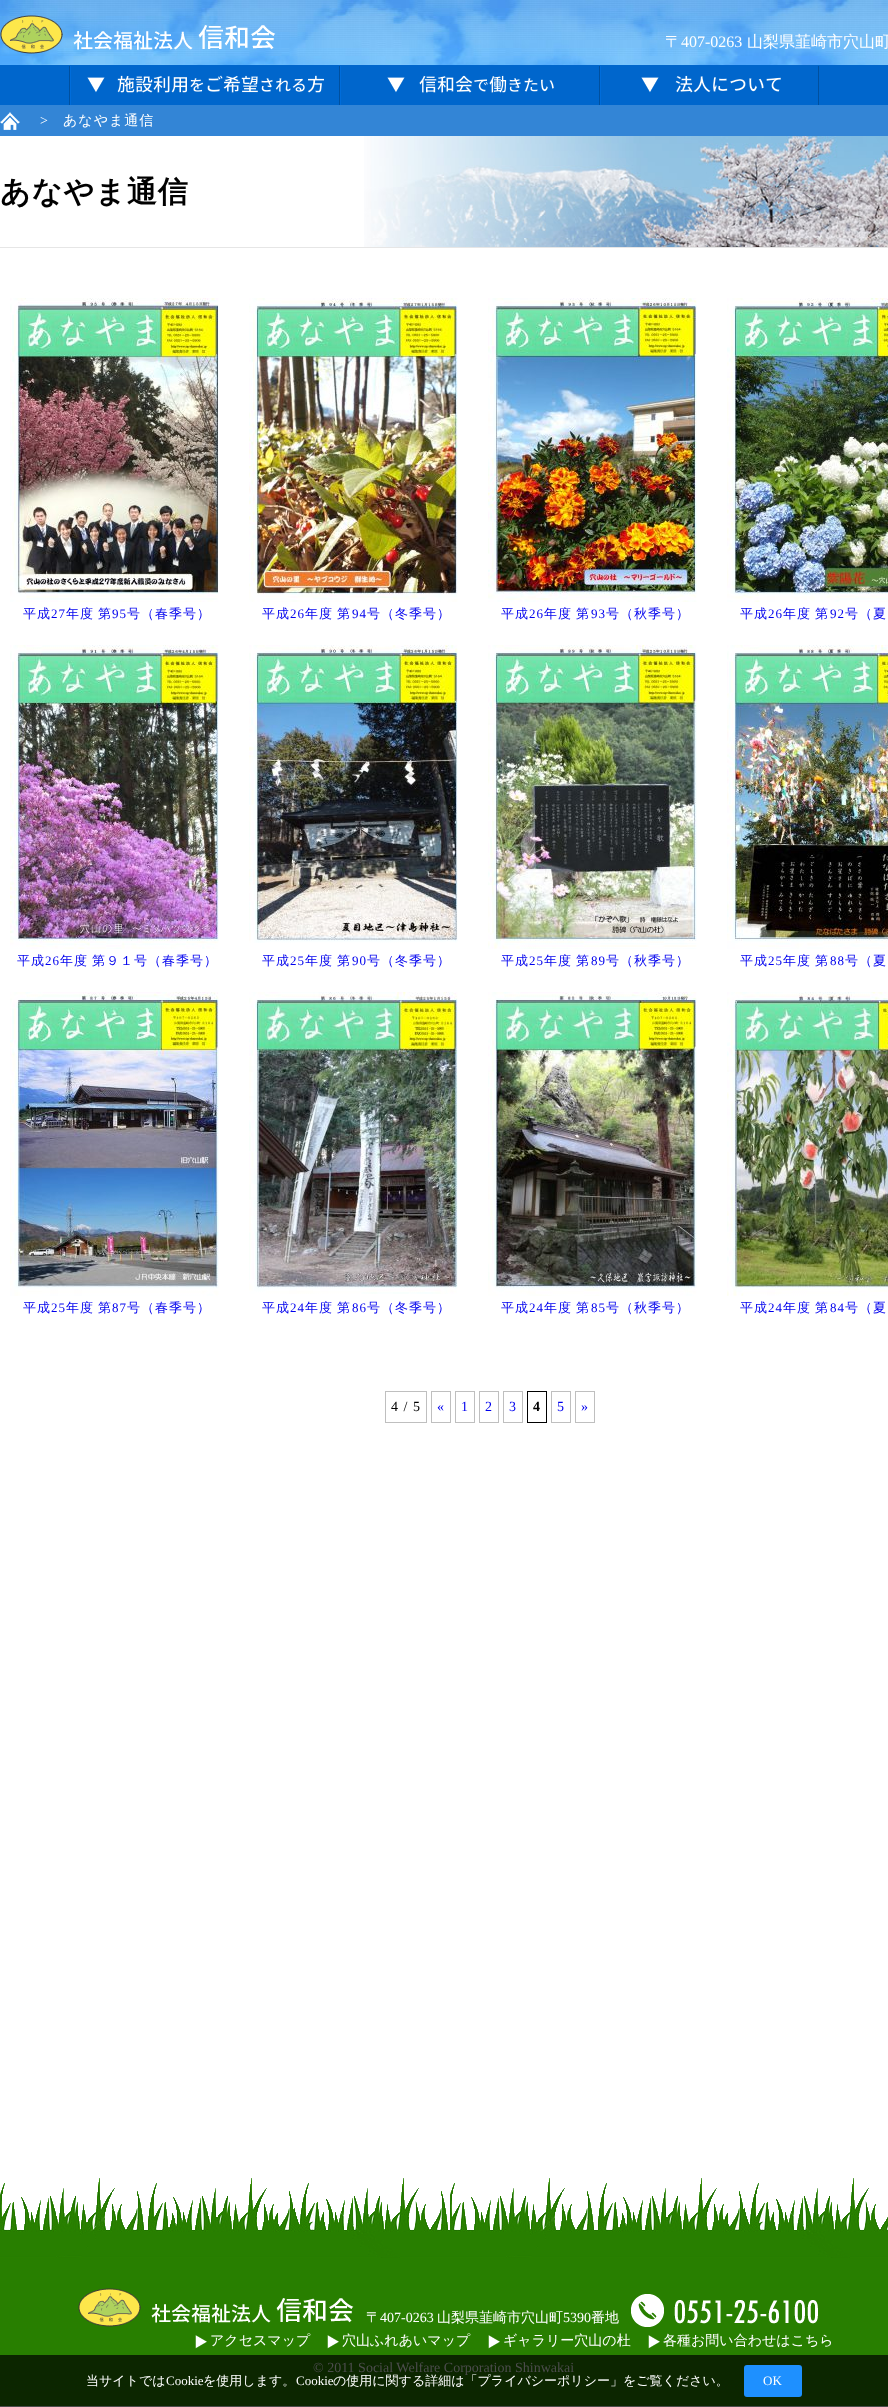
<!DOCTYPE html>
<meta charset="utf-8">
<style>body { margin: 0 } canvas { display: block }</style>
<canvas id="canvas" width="888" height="2407"></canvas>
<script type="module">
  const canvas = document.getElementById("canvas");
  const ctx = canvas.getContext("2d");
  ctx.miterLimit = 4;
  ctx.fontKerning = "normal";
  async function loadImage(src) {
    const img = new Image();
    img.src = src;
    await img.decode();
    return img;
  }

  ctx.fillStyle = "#ffffff";
  ctx.fillRect(0, 0, 888, 2407);
  ctx.fillStyle = "#4d4d4d";
  ctx.fillRect(0, 2406, 888, 1);
  ctx.drawImage(await loadImage("img1.png"), 0, 0, 888, 65);
  ctx.drawImage(await loadImage("img2.png"), 0, 15, 276, 39);
  ctx.font = "500 16px WenQuanYi Zen Hei";
  ctx.fillStyle = "#ffffff";
  ctx.fillText("〒", 665, 47);
  ctx.font = "16px Liberation Serif";
  ctx.fillText("407-0263", 681, 47);
  ctx.font = "500 16px WenQuanYi Zen Hei";
  ctx.fillText("山梨県韮崎市穴山町", 747, 47);
  ctx.fillStyle = "#0066cc";
  ctx.fillRect(0, 65, 888, 40);
  ctx.drawImage(await loadImage("img3.png"), 69, 66, 255, 39);
  ctx.drawImage(await loadImage("img4.png"), 339, 66, 215, 39);
  ctx.drawImage(await loadImage("img5.png"), 599, 66, 220, 39);
  ctx.fillStyle = "#3385d6";
  ctx.fillRect(0, 105, 888, 31);
  ctx.drawImage(await loadImage("img6.png"), 0, 112, 20, 18);
  ctx.letterSpacing = "1px";
  ctx.font = "14px Liberation Serif";
  ctx.fillStyle = "#ffffff";
  ctx.fillText(">", 40, 125);
  ctx.font = "500 14px WenQuanYi Zen Hei";
  ctx.fillText("あなやま通信", 63, 125);
  ctx.fillStyle = "#e6e6e6";
  ctx.fillRect(0, 247, 888, 1);
  ctx.drawImage(await loadImage("img7.png"), 364, 136, 524, 111);
  ctx.font = "bold 30px WenQuanYi Zen Hei";
  ctx.fillStyle = "#000000";
  ctx.fillText("あなやま通信", 0, 202);
  ctx.drawImage(await loadImage("img8.png"), 10, 298, 209, 304);
  ctx.font = "500 13px WenQuanYi Zen Hei";
  ctx.fillStyle = "#0000ee";
  ctx.fillText("平成", 23, 618);
  ctx.font = "13px Liberation Serif";
  ctx.fillText("27", 51, 618);
  ctx.wordSpacing = "-1px";
  ctx.font = "500 13px WenQuanYi Zen Hei";
  ctx.fillText("年度 第", 66, 618);
  ctx.wordSpacing = "0px";
  ctx.font = "13px Liberation Serif";
  ctx.fillText("95", 112, 618);
  ctx.font = "500 13px WenQuanYi Zen Hei";
  ctx.fillText("号（春季号）", 127, 618);
  ctx.drawImage(await loadImage("img9.png"), 249, 298, 209, 304);
  ctx.fillText("平成", 262, 618);
  ctx.font = "13px Liberation Serif";
  ctx.fillText("26", 290, 618);
  ctx.wordSpacing = "-1px";
  ctx.font = "500 13px WenQuanYi Zen Hei";
  ctx.fillText("年度 第", 305, 618);
  ctx.wordSpacing = "0px";
  ctx.font = "13px Liberation Serif";
  ctx.fillText("94", 352, 618);
  ctx.font = "500 13px WenQuanYi Zen Hei";
  ctx.fillText("号（冬季号）", 367, 618);
  ctx.drawImage(await loadImage("img10.png"), 488, 298, 209, 304);
  ctx.fillText("平成", 501, 618);
  ctx.font = "13px Liberation Serif";
  ctx.fillText("26", 529, 618);
  ctx.wordSpacing = "-1px";
  ctx.font = "500 13px WenQuanYi Zen Hei";
  ctx.fillText("年度 第", 544, 618);
  ctx.wordSpacing = "0px";
  ctx.font = "13px Liberation Serif";
  ctx.fillText("93", 591, 618);
  ctx.font = "500 13px WenQuanYi Zen Hei";
  ctx.fillText("号（秋季号）", 606, 618);
  ctx.drawImage(await loadImage("img11.png"), 727, 298, 161, 304);
  ctx.fillText("平成", 740, 618);
  ctx.font = "13px Liberation Serif";
  ctx.fillText("26", 768, 618);
  ctx.wordSpacing = "-1px";
  ctx.font = "500 13px WenQuanYi Zen Hei";
  ctx.fillText("年度 第", 783, 618);
  ctx.wordSpacing = "0px";
  ctx.font = "13px Liberation Serif";
  ctx.fillText("92", 830, 618);
  ctx.font = "500 13px WenQuanYi Zen Hei";
  ctx.fillText("号（夏", 845, 618);
  ctx.drawImage(await loadImage("img12.png"), 10, 645, 209, 304);
  ctx.fillText("平成", 17, 965);
  ctx.font = "13px Liberation Serif";
  ctx.fillText("26", 45, 965);
  ctx.wordSpacing = "-1px";
  ctx.font = "500 13px WenQuanYi Zen Hei";
  ctx.fillText("年度 第９１号（春季号）", 60, 965);
  ctx.drawImage(await loadImage("img13.png"), 249, 645, 209, 298);
  ctx.wordSpacing = "0px";
  ctx.fillText("平成", 262, 965);
  ctx.font = "13px Liberation Serif";
  ctx.fillText("25", 290, 965);
  ctx.wordSpacing = "-1px";
  ctx.font = "500 13px WenQuanYi Zen Hei";
  ctx.fillText("年度 第", 305, 965);
  ctx.wordSpacing = "0px";
  ctx.font = "13px Liberation Serif";
  ctx.fillText("90", 352, 965);
  ctx.font = "500 13px WenQuanYi Zen Hei";
  ctx.fillText("号（冬季号）", 367, 965);
  ctx.drawImage(await loadImage("img14.png"), 488, 645, 209, 304);
  ctx.fillText("平成", 501, 965);
  ctx.font = "13px Liberation Serif";
  ctx.fillText("25", 529, 965);
  ctx.wordSpacing = "-1px";
  ctx.font = "500 13px WenQuanYi Zen Hei";
  ctx.fillText("年度 第", 544, 965);
  ctx.wordSpacing = "0px";
  ctx.font = "13px Liberation Serif";
  ctx.fillText("89", 591, 965);
  ctx.font = "500 13px WenQuanYi Zen Hei";
  ctx.fillText("号（秋季号）", 606, 965);
  ctx.drawImage(await loadImage("img15.png"), 727, 645, 161, 304);
  ctx.fillText("平成", 740, 965);
  ctx.font = "13px Liberation Serif";
  ctx.fillText("25", 768, 965);
  ctx.wordSpacing = "-1px";
  ctx.font = "500 13px WenQuanYi Zen Hei";
  ctx.fillText("年度 第", 783, 965);
  ctx.wordSpacing = "0px";
  ctx.font = "13px Liberation Serif";
  ctx.fillText("88", 830, 965);
  ctx.font = "500 13px WenQuanYi Zen Hei";
  ctx.fillText("号（夏", 845, 965);
  ctx.drawImage(await loadImage("img16.png"), 10, 992, 209, 304);
  ctx.fillText("平成", 23, 1312);
  ctx.font = "13px Liberation Serif";
  ctx.fillText("25", 51, 1312);
  ctx.wordSpacing = "-1px";
  ctx.font = "500 13px WenQuanYi Zen Hei";
  ctx.fillText("年度 第", 66, 1312);
  ctx.wordSpacing = "0px";
  ctx.font = "13px Liberation Serif";
  ctx.fillText("87", 112, 1312);
  ctx.font = "500 13px WenQuanYi Zen Hei";
  ctx.fillText("号（春季号）", 127, 1312);
  ctx.drawImage(await loadImage("img17.png"), 249, 992, 209, 302);
  ctx.fillText("平成", 262, 1312);
  ctx.font = "13px Liberation Serif";
  ctx.fillText("24", 290, 1312);
  ctx.wordSpacing = "-1px";
  ctx.font = "500 13px WenQuanYi Zen Hei";
  ctx.fillText("年度 第", 305, 1312);
  ctx.wordSpacing = "0px";
  ctx.font = "13px Liberation Serif";
  ctx.fillText("86", 352, 1312);
  ctx.font = "500 13px WenQuanYi Zen Hei";
  ctx.fillText("号（冬季号）", 367, 1312);
  ctx.drawImage(await loadImage("img18.png"), 488, 992, 209, 304);
  ctx.fillText("平成", 501, 1312);
  ctx.font = "13px Liberation Serif";
  ctx.fillText("24", 529, 1312);
  ctx.wordSpacing = "-1px";
  ctx.font = "500 13px WenQuanYi Zen Hei";
  ctx.fillText("年度 第", 544, 1312);
  ctx.wordSpacing = "0px";
  ctx.font = "13px Liberation Serif";
  ctx.fillText("85", 591, 1312);
  ctx.font = "500 13px WenQuanYi Zen Hei";
  ctx.fillText("号（秋季号）", 606, 1312);
  ctx.drawImage(await loadImage("img19.png"), 727, 992, 161, 304);
  ctx.fillText("平成", 740, 1312);
  ctx.font = "13px Liberation Serif";
  ctx.fillText("24", 768, 1312);
  ctx.wordSpacing = "-1px";
  ctx.font = "500 13px WenQuanYi Zen Hei";
  ctx.fillText("年度 第", 783, 1312);
  ctx.wordSpacing = "0px";
  ctx.font = "13px Liberation Serif";
  ctx.fillText("84", 830, 1312);
  ctx.font = "500 13px WenQuanYi Zen Hei";
  ctx.fillText("号（夏", 845, 1312);
  ctx.strokeStyle = "#bfbfbf";
  ctx.strokeRect(385.5, 1391.5, 41, 31);
  ctx.font = "14px Liberation Serif";
  ctx.fillStyle = "#000000";
  ctx.fillText("4 / 5", 391, 1411);
  ctx.strokeRect(431.5, 1391.5, 19, 31);
  ctx.fillStyle = "#0000ee";
  ctx.fillText("«", 437, 1411);
  ctx.strokeRect(455.5, 1391.5, 19, 31);
  ctx.fillText("1", 461, 1411);
  ctx.strokeRect(479.5, 1391.5, 19, 31);
  ctx.fillText("2", 485, 1411);
  ctx.strokeRect(503.5, 1391.5, 19, 31);
  ctx.fillText("3", 509, 1411);
  ctx.strokeStyle = "#000000";
  ctx.strokeRect(527.5, 1391.5, 19, 31);
  ctx.font = "bold 14px Liberation Serif";
  ctx.fillStyle = "#000000";
  ctx.fillText("4", 533, 1411);
  ctx.strokeStyle = "#bfbfbf";
  ctx.strokeRect(551.5, 1391.5, 19, 31);
  ctx.font = "14px Liberation Serif";
  ctx.fillStyle = "#0000ee";
  ctx.fillText("5", 557, 1411);
  ctx.strokeRect(575.5, 1391.5, 19, 31);
  ctx.fillText("»", 581, 1411);
  ctx.drawImage(await loadImage("img20.png"), 0, 2178, 888, 80);
  ctx.fillStyle = "#287f00";
  ctx.fillRect(0, 2258, 888, 97);
  ctx.fillStyle = "#0c2600";
  ctx.fillRect(0, 2355, 888, 51);
  ctx.drawImage(await loadImage("img21.png"), 78, 2288, 276, 39);
  ctx.letterSpacing = "0px";
  ctx.font = "500 14px WenQuanYi Zen Hei";
  ctx.fillStyle = "#ffffff";
  ctx.fillText("〒", 366, 2322);
  ctx.font = "14px Liberation Serif";
  ctx.fillText("407-0263", 380, 2322);
  ctx.font = "500 14px WenQuanYi Zen Hei";
  ctx.fillText("山梨県韮崎市穴山町", 437, 2322);
  ctx.font = "14px Liberation Serif";
  ctx.fillText("5390", 563, 2322);
  ctx.font = "500 14px WenQuanYi Zen Hei";
  ctx.fillText("番地", 591, 2322);
  ctx.drawImage(await loadImage("img22.png"), 631, 2294, 187, 33);
  ctx.drawImage(await loadImage("img23.png"), 195, 2335, 12, 14);
  ctx.fillText("アクセスマップ", 210, 2345);
  ctx.drawImage(await loadImage("img23.png"), 327, 2335, 12, 14);
  ctx.fillText("穴山ふれあいマップ", 342, 2345);
  ctx.drawImage(await loadImage("img23.png"), 488, 2335, 12, 14);
  ctx.fillText("ギャラリー穴山の杜", 503, 2345);
  ctx.drawImage(await loadImage("img23.png"), 648, 2335, 12, 14);
  ctx.fillText("各種お問い合わせはこちら", 663, 2345);
  ctx.font = "14px Liberation Serif";
  ctx.fillStyle = "#4d4d4d";
  ctx.fillText("© 2011 Social Welfare Corporation Shinwakai", 313, 2372);
  ctx.font = "500 13px WenQuanYi Zen Hei";
  ctx.fillStyle = "#ffffff";
  ctx.fillText("当サイトでは", 86, 2385);
  ctx.font = "13px Liberation Serif";
  ctx.fillText("Cookie", 166, 2385);
  ctx.font = "500 13px WenQuanYi Zen Hei";
  ctx.fillText("を使用します。", 203, 2385);
  ctx.font = "13px Liberation Serif";
  ctx.fillText("Cookie", 296, 2385);
  ctx.font = "500 13px WenQuanYi Zen Hei";
  ctx.fillText("の使用に関する詳細は「プライバシーポリシー」をご覧ください。", 333, 2385);
  ctx.fillStyle = "#1e90ff";
  ctx.beginPath();
  ctx.roundRect(744, 2365, 58, 32, 3);
  ctx.fill();
  ctx.font = "13px Liberation Serif";
  ctx.fillStyle = "#ffffff";
  ctx.fillText("OK", 763, 2385);
</script>
